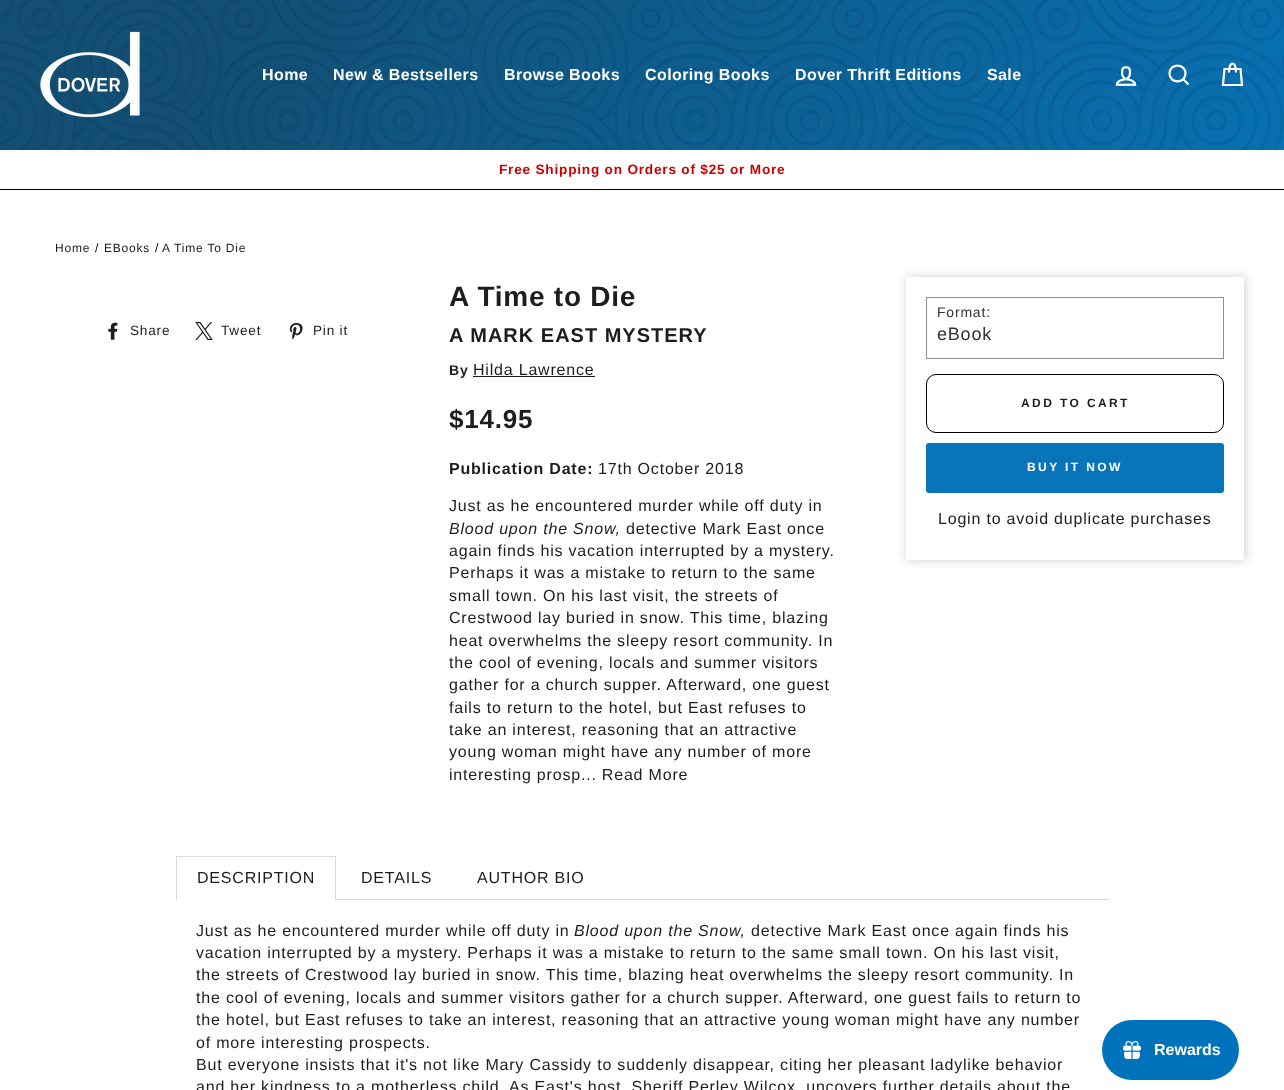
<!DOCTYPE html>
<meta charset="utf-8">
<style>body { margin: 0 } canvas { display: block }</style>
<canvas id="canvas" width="1284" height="1090"></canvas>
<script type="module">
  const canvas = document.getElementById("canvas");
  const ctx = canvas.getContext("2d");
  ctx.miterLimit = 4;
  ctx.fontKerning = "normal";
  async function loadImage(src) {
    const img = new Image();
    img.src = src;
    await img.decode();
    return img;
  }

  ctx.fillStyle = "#ffffff";
  ctx.fillRect(0, 0, 1284, 1090);
  ctx.drawImage(await loadImage("img1.png"), 0, 0, 1284, 150);
  ctx.drawImage(await loadImage("img2.png"), 40, 31, 100, 87);
  ctx.letterSpacing = "0.4px";
  ctx.font = "bold 16px Liberation Sans";
  ctx.fillText("Home", 262, 80);
  ctx.fillText("New & Bestsellers", 333, 80);
  ctx.fillText("Browse Books", 504, 80);
  ctx.fillText("Coloring Books", 645, 80);
  ctx.fillText("Dover Thrift Editions", 795, 80);
  ctx.fillText("Sale", 987, 80);
  ctx.drawImage(await loadImage("img3.png"), 1115, 66, 22, 20);
  ctx.beginPath();
  ctx.moveTo(1185.5, 73.5);
  ctx.bezierCurveTo(1185.5, 84, 1169.5, 84, 1169.5, 73.5);
  ctx.bezierCurveTo(1169.5, 63, 1185.5, 63, 1185.5, 73.5);
  ctx.closePath();
  ctx.moveTo(1188.5, 84.5);
  ctx.lineTo(1183.5, 79.5);
  ctx.strokeStyle = "#ffffff";
  ctx.lineWidth = 2.2;
  ctx.stroke();
  ctx.beginPath();
  ctx.moveTo(1229, 72.5);
  ctx.bezierCurveTo(1229, 60.5, 1236, 60.5, 1236, 72.5);
  ctx.moveTo(1224.5, 69);
  ctx.lineTo(1240.5, 69);
  ctx.lineTo(1242, 85);
  ctx.lineTo(1223, 85);
  ctx.closePath();
  ctx.stroke();
  ctx.fillStyle = "#000000";
  ctx.fillRect(0, 189, 1284, 1);
  ctx.letterSpacing = "0.8px";
  ctx.font = "bold 13.6px Arimo";
  ctx.fillStyle = "#cc0000";
  ctx.fillText("Free Shipping on Orders of $25 or More", 499, 174);
  ctx.font = "12px Arimo";
  ctx.fillStyle = "#1c1d1d";
  ctx.fillText("Home", 55, 252);
  ctx.fillStyle = "#000000";
  ctx.fillText("/", 95, 252);
  ctx.fillStyle = "#1c1d1d";
  ctx.fillText("EBooks", 104, 252);
  ctx.fillStyle = "#000000";
  ctx.fillText("/", 155, 252);
  ctx.fillStyle = "#1c1d1d";
  ctx.fillText("A Time To Die", 162, 252);
  ctx.drawImage(await loadImage("img4.png"), 108, 322, 10, 18);
  ctx.font = "13.6px Arimo";
  ctx.fillText("Share", 130, 335);
  ctx.drawImage(await loadImage("img5.png"), 195, 322, 18, 18);
  ctx.fillText("Tweet", 221, 335);
  ctx.drawImage(await loadImage("img6.png"), 289, 323, 14, 17);
  ctx.fillText("Pin it", 313, 335);
  ctx.letterSpacing = "0.75px";
  ctx.font = "bold 28px Liberation Sans";
  ctx.fillText("A Time to Die", 449, 306);
  ctx.letterSpacing = "1px";
  ctx.font = "bold 20px Liberation Sans";
  ctx.fillText("A MARK EAST MYSTERY", 449, 342);
  ctx.letterSpacing = "0.8px";
  ctx.font = "bold 14px Arimo";
  ctx.fillText("By", 449, 375);
  ctx.font = "16px Arimo";
  ctx.fillText("Hilda Lawrence", 473, 375);
  ctx.fillRect(473, 376, 122, 1);
  ctx.font = "bold 26px Arimo";
  ctx.fillText("$14.95", 449, 428);
  ctx.font = "bold 16px Arimo";
  ctx.fillText("Publication Date:", 449, 474);
  ctx.font = "16px Arimo";
  ctx.fillText("17th October 2018", 598, 474);
  ctx.fillText("Just as he encountered murder while off duty in", 449, 511);
  ctx.font = "italic 16px Arimo";
  ctx.fillText("Blood upon the Snow,", 449, 534);
  ctx.font = "16px Arimo";
  ctx.fillText("detective Mark East once", 626, 534);
  ctx.fillText("again finds his vacation interrupted by a mystery.", 449, 556);
  ctx.fillText("Perhaps it was a mistake to return to the same", 449, 578);
  ctx.fillText("small town. On his last visit, the streets of", 449, 601);
  ctx.fillText("Crestwood lay buried in snow. This time, blazing", 449, 623);
  ctx.fillText("heat overwhelms the sleepy resort community. In", 449, 646);
  ctx.fillText("the cool of evening, locals and summer visitors", 449, 668);
  ctx.fillText("gather for a church supper. Afterward, one guest", 449, 690);
  ctx.fillText("fails to return to the hotel, but East refuses to", 449, 713);
  ctx.fillText("take an interest, reasoning that an attractive", 449, 735);
  ctx.fillText("young woman might have any number of more", 449, 757);
  ctx.fillText("interesting prosp... Read More", 449, 780);
  ctx.save();
  ctx.beginPath();
  ctx.moveTo(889, 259);
  ctx.lineTo(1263, 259);
  ctx.lineTo(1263, 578);
  ctx.lineTo(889, 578);
  ctx.closePath();
  ctx.moveTo(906, 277);
  ctx.lineTo(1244, 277);
  ctx.lineTo(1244, 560);
  ctx.lineTo(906, 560);
  ctx.closePath();
  ctx.clip("evenodd");
  ctx.fillStyle = "rgba(0, 0, 0, 0.2)";
  ctx.filter = "blur(5.5px)";
  ctx.beginPath();
  ctx.rect(907, 277, 338, 283);
  ctx.fill();
  ctx.filter = "none";
  ctx.restore();
  ctx.strokeStyle = "#9c8b8b";
  ctx.lineWidth = 1;
  ctx.strokeRect(926.5, 297.5, 297, 61);
  ctx.font = "14px Arimo";
  ctx.fillStyle = "#333333";
  ctx.fillText("Format:", 937, 317);
  ctx.font = "18px Arimo";
  ctx.fillText("eBook", 937, 340);
  ctx.beginPath();
  ctx.roundRect(926.5, 374.5, 297, 58, 9.5);
  ctx.strokeStyle = "#000000";
  ctx.stroke();
  ctx.letterSpacing = "2.4px";
  ctx.font = "bold 12px Arimo";
  ctx.fillStyle = "#1c1d1d";
  ctx.fillText("ADD TO CART", 1021, 407);
  ctx.fillStyle = "#0874b9";
  ctx.beginPath();
  ctx.roundRect(926, 443, 298, 50, 3);
  ctx.fill();
  ctx.fillStyle = "#ffffff";
  ctx.fillText("BUY IT NOW", 1027, 471);
  ctx.letterSpacing = "0.8px";
  ctx.font = "16px Arimo";
  ctx.fillStyle = "#1c1d1d";
  ctx.fillText("Login to avoid duplicate purchases", 938, 524);
  ctx.fillStyle = "#dddada";
  ctx.fillRect(176, 856, 160, 1);
  ctx.fillRect(335, 856, 1, 44);
  ctx.fillRect(176, 856, 1, 44);
  ctx.fillStyle = "#1c1d1d";
  ctx.fillText("DESCRIPTION", 197, 883);
  ctx.fillText("DETAILS", 361, 883);
  ctx.fillText("AUTHOR BIO", 477, 883);
  ctx.fillStyle = "#dddada";
  ctx.fillRect(336, 899, 773, 1);
  ctx.fillStyle = "#1c1d1d";
  ctx.fillText("Just as he encountered murder while off duty in", 196, 936);
  ctx.font = "italic 16px Arimo";
  ctx.fillText("Blood upon the Snow,", 574, 936);
  ctx.font = "16px Arimo";
  ctx.fillText("detective Mark East once again finds his", 751, 936);
  ctx.fillText("vacation interrupted by a mystery. Perhaps it was a mistake to return to the same small town. On his last visit,", 196, 958);
  ctx.fillText("the streets of Crestwood lay buried in snow. This time, blazing heat overwhelms the sleepy resort community. In", 196, 980);
  ctx.fillText("the cool of evening, locals and summer visitors gather for a church supper. Afterward, one guest fails to return to", 196, 1003);
  ctx.fillText("the hotel, but East refuses to take an interest, reasoning that an attractive young woman might have any number", 196, 1025);
  ctx.fillText("of more interesting prospects.", 196, 1048);
  ctx.fillText("But everyone insists that it's not like Mary Cassidy to suddenly disappear, citing her pleasant ladylike behavior", 196, 1070);
  ctx.fillText("and her kindness to a motherless child. As East's host, Sheriff Perley Wilcox, uncovers further details about the", 196, 1092);
  ctx.fillStyle = "#0072bc";
  ctx.beginPath();
  ctx.roundRect(1102, 1020, 137, 60, 30);
  ctx.fill();
  ctx.drawImage(await loadImage("img7.png"), 1123, 1041, 18, 18);
  ctx.letterSpacing = "0px";
  ctx.font = "bold 16px Liberation Sans";
  ctx.fillStyle = "#ffffff";
  ctx.fillText("Rewards", 1154, 1055);
</script>
